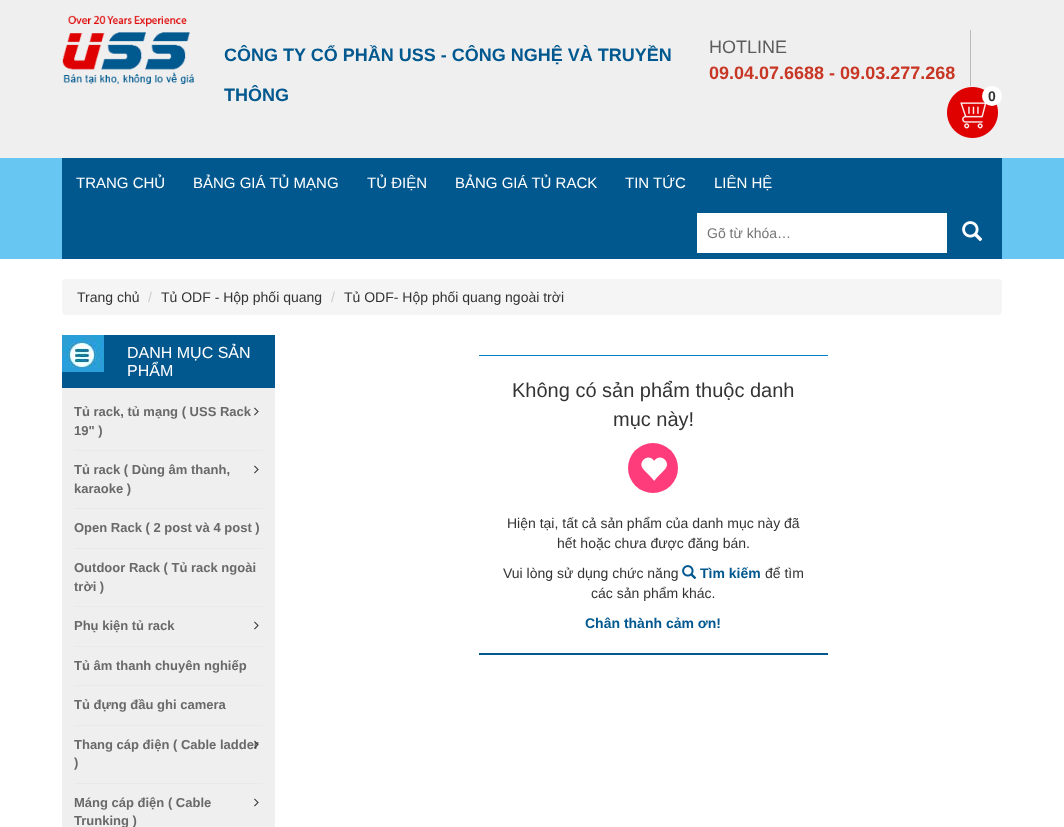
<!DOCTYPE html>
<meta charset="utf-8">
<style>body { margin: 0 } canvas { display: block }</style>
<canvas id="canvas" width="1064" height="827"></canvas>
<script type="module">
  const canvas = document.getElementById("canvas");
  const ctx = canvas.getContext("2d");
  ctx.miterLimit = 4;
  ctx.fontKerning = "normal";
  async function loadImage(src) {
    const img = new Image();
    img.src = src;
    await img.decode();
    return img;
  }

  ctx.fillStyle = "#ffffff";
  ctx.fillRect(0, 0, 1064, 827);
  ctx.fillStyle = "#efefef";
  ctx.fillRect(0, 0, 1064, 158);
  ctx.drawImage(await loadImage("img1.png"), 62, 15, 132, 69);
  ctx.font = "bold 18px Liberation Sans";
  ctx.fillStyle = "#00588f";
  ctx.fillText("CÔNG TY CỔ PHẦN USS - CÔNG NGHỆ VÀ TRUYỀN", 224, 61);
  ctx.fillText("THÔNG", 224, 101);
  ctx.fillStyle = "#bcbbbb";
  ctx.fillRect(970, 30, 1, 56);
  ctx.font = "18px Liberation Sans";
  ctx.fillStyle = "#5c5c5c";
  ctx.fillText("HOTLINE", 709, 53);
  ctx.font = "bold 18px Liberation Sans";
  ctx.fillStyle = "#c83726";
  ctx.fillText("09.04.07.6688 - 09.03.277.268", 709, 79);
  ctx.drawImage(await loadImage("img2.png"), 947, 87, 51, 51);
  ctx.fillStyle = "#ffffff";
  ctx.beginPath();
  ctx.arc(992, 96, 10, 0, Math.PI * 2);
  ctx.fill();
  ctx.font = "bold 14px Liberation Sans";
  ctx.fillStyle = "#333333";
  ctx.fillText("0", 988, 101);
  ctx.fillStyle = "#68c6f2";
  ctx.fillRect(0, 158, 1064, 101);
  ctx.fillStyle = "#00588f";
  ctx.fillRect(62, 158, 940, 101);
  ctx.font = "15px Liberation Sans";
  ctx.fillStyle = "#ffffff";
  ctx.fillText("TRANG CHỦ", 76, 188);
  ctx.fillText("BẢNG GIÁ TỦ MẠNG", 193, 188);
  ctx.fillText("TỦ ĐIỆN", 367, 188);
  ctx.fillText("BẢNG GIÁ TỦ RACK", 455, 188);
  ctx.fillText("TIN TỨC", 625, 188);
  ctx.fillText("LIÊN HỆ", 714, 188);
  ctx.fillRect(697, 213, 250, 40);
  ctx.font = "14px Liberation Sans";
  ctx.fillStyle = "#757575";
  ctx.fillText("Gõ từ khóa…", 707, 238);
  ctx.drawImage(await loadImage("img3.png"), 962, 221, 21, 21);
  ctx.fillStyle = "#f5f5f5";
  ctx.beginPath();
  ctx.roundRect(62, 279, 940, 36, 4);
  ctx.fill();
  ctx.fillStyle = "#333333";
  ctx.fillText("Trang chủ", 77, 302);
  ctx.fillStyle = "#cccccc";
  ctx.fillText("/", 148, 302);
  ctx.fillStyle = "#333333";
  ctx.fillText("Tủ ODF - Hộp phối quang", 161, 302);
  ctx.fillStyle = "#cccccc";
  ctx.fillText("/", 331, 302);
  ctx.fillStyle = "#333333";
  ctx.fillText("Tủ ODF- Hộp phối quang ngoài trời", 344, 302);
  ctx.fillStyle = "#00588f";
  ctx.fillRect(62, 335, 213, 53);
  ctx.drawImage(await loadImage("img4.png"), 62, 335, 42, 37);
  ctx.font = "16px Liberation Sans";
  ctx.fillStyle = "#ffffff";
  ctx.fillText("DANH MỤC SẢN", 127, 358);
  ctx.fillText("PHẨM", 127, 376);
  ctx.fillStyle = "#efefef";
  ctx.fillRect(62, 388, 213, 439);
  ctx.fillStyle = "#e9e9e9";
  ctx.fillRect(74, 450, 189, 1);
  ctx.font = "bold 13px Liberation Sans";
  ctx.fillStyle = "#696969";
  ctx.fillText("Tủ rack, tủ mạng ( USS Rack", 74, 416);
  ctx.fillText("19\" )", 74, 435);
  ctx.drawImage(await loadImage("img5.png"), 254, 407, 5, 9);
  ctx.fillStyle = "#e9e9e9";
  ctx.fillRect(74, 508, 189, 1);
  ctx.fillStyle = "#696969";
  ctx.fillText("Tủ rack ( Dùng âm thanh,", 74, 474);
  ctx.fillText("karaoke )", 74, 493);
  ctx.drawImage(await loadImage("img5.png"), 254, 465, 5, 9);
  ctx.fillStyle = "#e9e9e9";
  ctx.fillRect(74, 548, 189, 1);
  ctx.fillStyle = "#696969";
  ctx.fillText("Open Rack ( 2 post và 4 post )", 74, 532);
  ctx.fillStyle = "#e9e9e9";
  ctx.fillRect(74, 606, 189, 1);
  ctx.fillStyle = "#696969";
  ctx.fillText("Outdoor Rack ( Tủ rack ngoài", 74, 572);
  ctx.fillText("trời )", 74, 591);
  ctx.fillStyle = "#e9e9e9";
  ctx.fillRect(74, 646, 189, 1);
  ctx.fillStyle = "#696969";
  ctx.fillText("Phụ kiện tủ rack", 74, 630);
  ctx.drawImage(await loadImage("img5.png"), 254, 621, 5, 9);
  ctx.fillStyle = "#e9e9e9";
  ctx.fillRect(74, 685, 189, 1);
  ctx.fillStyle = "#696969";
  ctx.fillText("Tủ âm thanh chuyên nghiếp", 74, 670);
  ctx.fillStyle = "#e9e9e9";
  ctx.fillRect(74, 725, 189, 1);
  ctx.fillStyle = "#696969";
  ctx.fillText("Tủ đựng đầu ghi camera", 74, 709);
  ctx.fillStyle = "#e9e9e9";
  ctx.fillRect(74, 783, 189, 1);
  ctx.fillStyle = "#696969";
  ctx.fillText("Thang cáp điện ( Cable ladder", 74, 749);
  ctx.fillText(")", 74, 767);
  ctx.drawImage(await loadImage("img6.png"), 254, 740, 5, 9);
  ctx.fillText("Máng cáp điện ( Cable", 74, 807);
  ctx.fillText("Trunking )", 74, 825);
  ctx.drawImage(await loadImage("img5.png"), 254, 798, 5, 9);
  ctx.fillStyle = "#007ec6";
  ctx.fillRect(479, 355, 349, 1);
  ctx.fillStyle = "#00588f";
  ctx.fillRect(479, 653, 349, 2);
  ctx.font = "20px Liberation Sans";
  ctx.fillStyle = "#333333";
  ctx.fillText("Không có sản phẩm thuộc danh", 512, 397);
  ctx.fillText("mục này!", 613, 426);
  ctx.fillStyle = "#ff3c7b";
  ctx.beginPath();
  ctx.arc(653, 468, 25, 0, Math.PI * 2);
  ctx.fill();
  ctx.drawImage(await loadImage("img7.png"), 641, 457, 26, 24);
  ctx.font = "14px Liberation Sans";
  ctx.fillStyle = "#333333";
  ctx.fillText("Hiện tại, tất cả sản phẩm của danh mục này đã", 507, 528);
  ctx.fillText("hết hoặc chưa được đăng bán.", 557, 548);
  ctx.fillText("Vui lòng sử dụng chức năng", 503, 578);
  ctx.drawImage(await loadImage("img8.png"), 682, 565, 15, 14);
  ctx.font = "bold 14px Liberation Sans";
  ctx.fillStyle = "#00588f";
  ctx.fillText("Tìm kiếm", 700, 578);
  ctx.font = "14px Liberation Sans";
  ctx.fillStyle = "#333333";
  ctx.fillText("để tìm", 765, 578);
  ctx.fillText("các sản phẩm khác.", 591, 598);
  ctx.font = "bold 14px Liberation Sans";
  ctx.fillStyle = "#00588f";
  ctx.fillText("Chân thành cảm ơn!", 585, 628);
</script>
